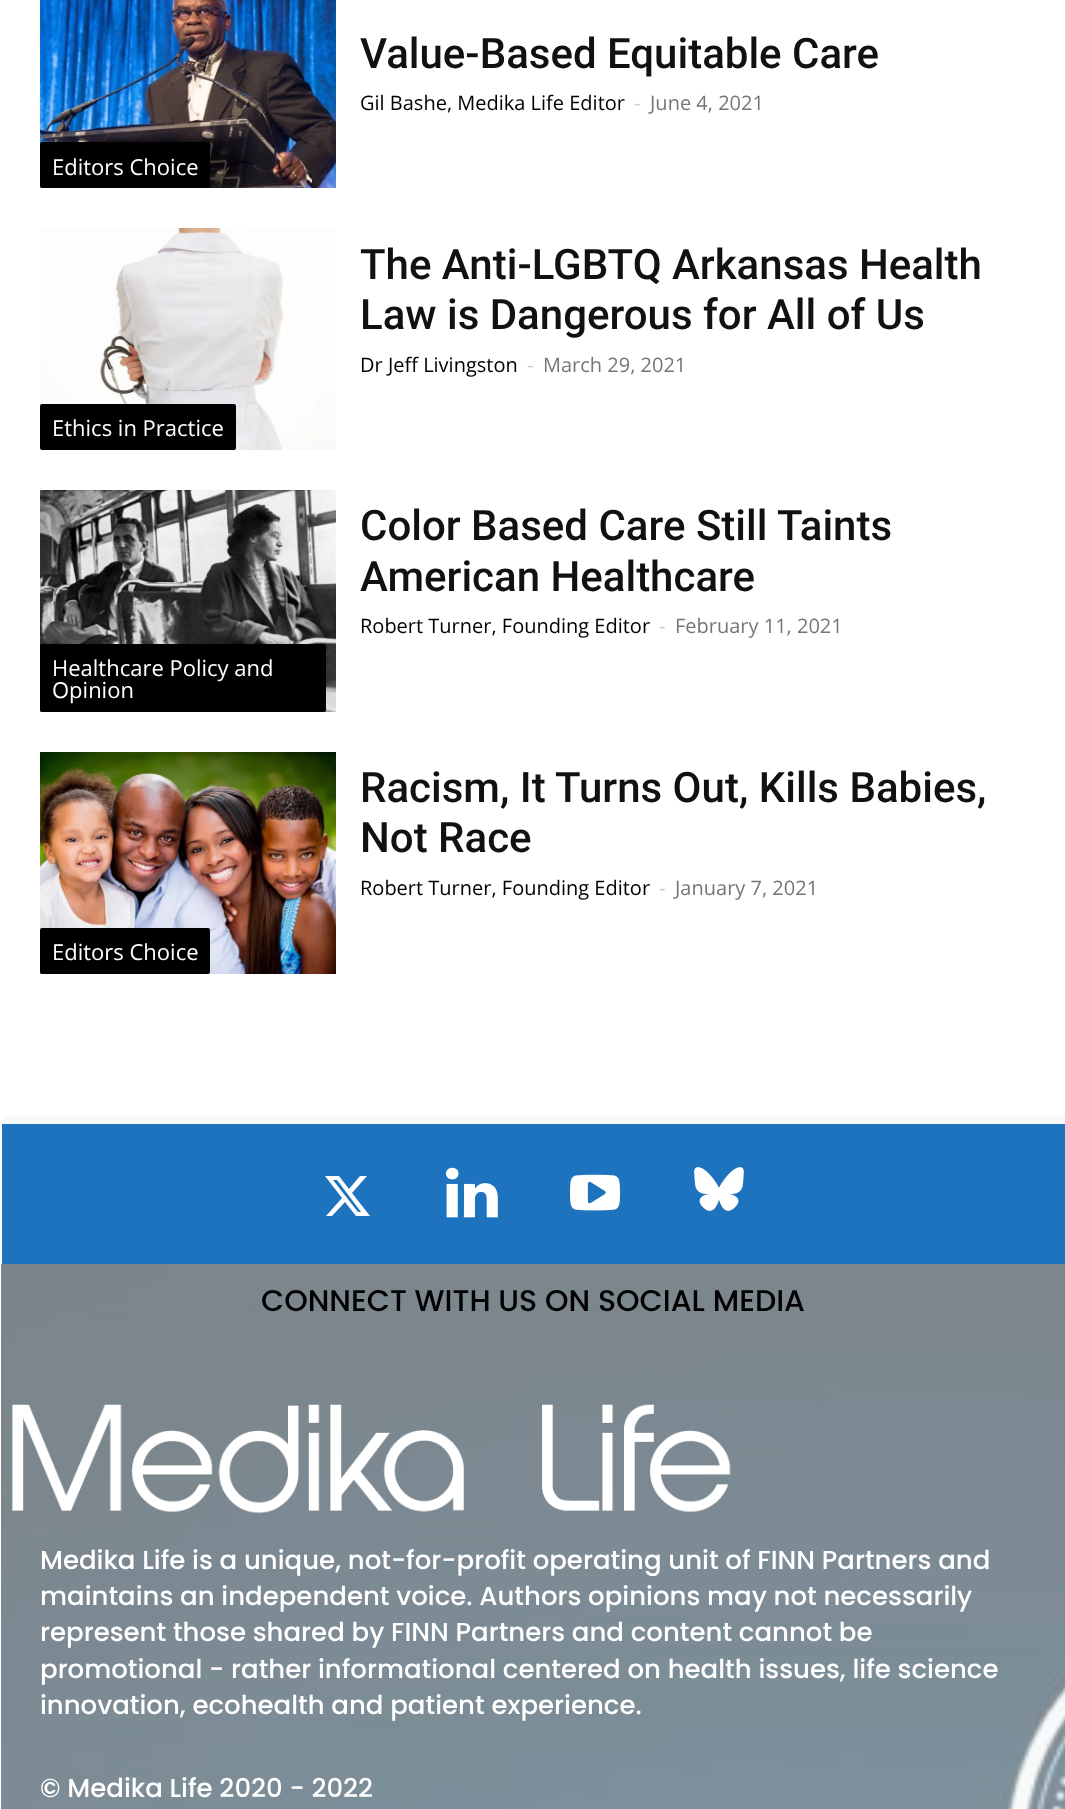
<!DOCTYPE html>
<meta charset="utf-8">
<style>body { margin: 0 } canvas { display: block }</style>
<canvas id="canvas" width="1065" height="1809"></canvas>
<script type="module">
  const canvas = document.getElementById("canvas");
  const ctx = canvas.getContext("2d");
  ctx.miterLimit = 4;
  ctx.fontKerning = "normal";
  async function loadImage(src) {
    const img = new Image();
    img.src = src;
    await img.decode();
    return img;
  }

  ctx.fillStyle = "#ffffff";
  ctx.fillRect(0, 0, 1065, 1809);
  ctx.font = "500 42px Roboto";
  ctx.fillStyle = "#111111";
  ctx.fillText("Value-Based Equitable Care", 360, 68);
  ctx.font = "20px Open Sans";
  ctx.fillStyle = "#000000";
  ctx.fillText("Gil Bashe, Medika Life Editor", 360, 110);
  ctx.fillStyle = "#cccccc";
  ctx.fillText("-", 634, 110);
  ctx.fillStyle = "#767676";
  ctx.fillText("June 4, 2021", 650, 110);
  ctx.drawImage(await loadImage("img1.png"), 40, 0, 296, 188);
  ctx.fillStyle = "#000000";
  ctx.beginPath();
  ctx.roundRect(41, 143, 168, 44, 1);
  ctx.fill();
  ctx.strokeStyle = "#000000";
  ctx.lineWidth = 2;
  ctx.stroke();
  ctx.font = "22px Open Sans";
  ctx.fillStyle = "#ffffff";
  ctx.fillText("Editors Choice", 52, 175);
  ctx.font = "500 42px Roboto";
  ctx.fillStyle = "#111111";
  ctx.fillText("The Anti-LGBTQ Arkansas Health", 360, 279);
  ctx.fillText("Law is Dangerous for All of Us", 360, 329);
  ctx.font = "20px Open Sans";
  ctx.fillStyle = "#000000";
  ctx.fillText("Dr Jeff Livingston", 360, 372);
  ctx.fillStyle = "#cccccc";
  ctx.fillText("-", 527, 372);
  ctx.fillStyle = "#767676";
  ctx.fillText("March 29, 2021", 543, 372);
  ctx.drawImage(await loadImage("img2.png"), 40, 228, 296, 222);
  ctx.fillStyle = "#000000";
  ctx.beginPath();
  ctx.roundRect(41, 405, 194, 44, 1);
  ctx.fill();
  ctx.stroke();
  ctx.font = "22px Open Sans";
  ctx.fillStyle = "#ffffff";
  ctx.fillText("Ethics in Practice", 52, 436);
  ctx.font = "500 42px Roboto";
  ctx.fillStyle = "#111111";
  ctx.fillText("Color Based Care Still Taints", 360, 540);
  ctx.fillText("American Healthcare", 360, 591);
  ctx.font = "20px Open Sans";
  ctx.fillStyle = "#000000";
  ctx.fillText("Robert Turner, Founding Editor", 360, 633);
  ctx.fillStyle = "#cccccc";
  ctx.fillText("-", 659, 633);
  ctx.fillStyle = "#767676";
  ctx.fillText("February 11, 2021", 675, 633);
  ctx.drawImage(await loadImage("img3.png"), 40, 490, 296, 222);
  ctx.fillStyle = "#000000";
  ctx.beginPath();
  ctx.roundRect(41, 645, 284, 66, 1);
  ctx.fill();
  ctx.stroke();
  ctx.font = "22px Open Sans";
  ctx.fillStyle = "#ffffff";
  ctx.fillText("Healthcare Policy and", 52, 676);
  ctx.fillText("Opinion", 52, 698);
  ctx.font = "500 42px Roboto";
  ctx.fillStyle = "#111111";
  ctx.fillText("Racism, It Turns Out, Kills Babies,", 360, 802);
  ctx.fillText("Not Race", 360, 852);
  ctx.font = "20px Open Sans";
  ctx.fillStyle = "#000000";
  ctx.fillText("Robert Turner, Founding Editor", 360, 895);
  ctx.fillStyle = "#cccccc";
  ctx.fillText("-", 659, 895);
  ctx.fillStyle = "#767676";
  ctx.fillText("January 7, 2021", 675, 895);
  ctx.drawImage(await loadImage("img4.png"), 40, 752, 296, 222);
  ctx.fillStyle = "#000000";
  ctx.beginPath();
  ctx.roundRect(41, 929, 168, 44, 1);
  ctx.fill();
  ctx.stroke();
  ctx.font = "22px Open Sans";
  ctx.fillStyle = "#ffffff";
  ctx.fillText("Editors Choice", 52, 960);
  ctx.fillStyle = "#f9f9f9";
  ctx.fillRect(2, 1116, 1063, 693);
  ctx.fillStyle = "#1e73be";
  ctx.fillRect(2, 1124, 1063, 140);
  ctx.fillStyle = "#ffffff";
  ctx.beginPath();
  ctx.moveTo(360, 1176);
  ctx.lineTo(367, 1176);
  ctx.lineTo(352, 1193);
  ctx.lineTo(370, 1216);
  ctx.lineTo(356, 1216);
  ctx.lineTo(345, 1202);
  ctx.lineTo(332, 1216);
  ctx.lineTo(326, 1216);
  ctx.lineTo(342, 1198);
  ctx.lineTo(325, 1176);
  ctx.lineTo(339, 1176);
  ctx.lineTo(349, 1189);
  ctx.closePath();
  ctx.moveTo(358, 1212);
  ctx.lineTo(361, 1212);
  ctx.lineTo(337, 1180);
  ctx.lineTo(333, 1180);
  ctx.closePath();
  ctx.fill();
  ctx.drawImage(await loadImage("img5.png"), 446, 1167, 52, 51);
  ctx.drawImage(await loadImage("img6.png"), 570, 1174, 50, 37);
  ctx.drawImage(await loadImage("img7.png"), 694, 1167, 50, 44);
  ctx.drawImage(await loadImage("img8.png"), 1, 1264, 1064, 545);
  ctx.font = "500 30px Poppins";
  ctx.fillStyle = "#000000";
  ctx.fillText("CONNECT WITH US ON SOCIAL MEDIA", 261, 1311);
  ctx.drawImage(await loadImage("img9.png"), 12, 1404, 719, 110);
  ctx.font = "500 26px Poppins";
  ctx.fillStyle = "#ffffff";
  ctx.fillText("Medika Life is a unique, not-for-profit operating unit of FINN Partners and", 40, 1569);
  ctx.fillText("maintains an independent voice. Authors opinions may not necessarily", 40, 1605);
  ctx.fillText("represent those shared by FINN Partners and content cannot be", 40, 1641);
  ctx.fillText("promotional - rather informational centered on health issues, life science", 40, 1678);
  ctx.fillText("innovation, ecohealth and patient experience.", 40, 1714);
  ctx.fillText("© Medika Life 2020 - 2022", 40, 1797);
</script>
